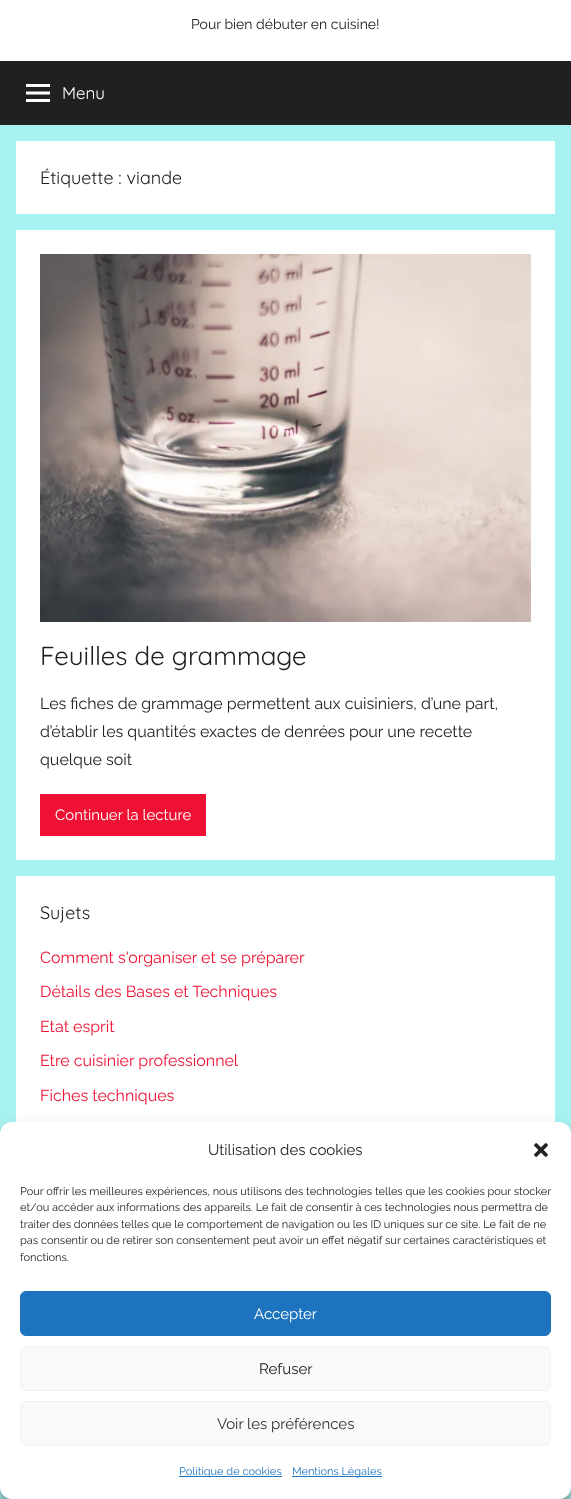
<!DOCTYPE html>
<meta charset="utf-8">
<style>body { margin: 0 } canvas { display: block }</style>
<canvas id="canvas" width="571" height="1499"></canvas>
<script type="module">
  const canvas = document.getElementById("canvas");
  const ctx = canvas.getContext("2d");
  ctx.miterLimit = 4;
  ctx.fontKerning = "normal";
  async function loadImage(src) {
    const img = new Image();
    img.src = src;
    await img.decode();
    return img;
  }

  ctx.fillStyle = "#a9f2f2";
  ctx.fillRect(0, 0, 571, 1499);
  ctx.fillStyle = "#ffffff";
  ctx.fillRect(0, 0, 571, 61);
  ctx.font = "100 14px Raleway";
  ctx.fillStyle = "#202020";
  ctx.fillText("Pour bien débuter en cuisine!", 191, 29);
  ctx.fillRect(0, 61, 571, 64);
  ctx.drawImage(await loadImage("img1.png"), 26, 84, 24, 18);
  ctx.font = "300 17px Quicksand";
  ctx.fillStyle = "#ffffff";
  ctx.fillText("Menu", 62, 99);
  ctx.fillRect(16, 141, 539, 73);
  ctx.font = "300 18px Quicksand";
  ctx.fillStyle = "#202020";
  ctx.fillText("Étiquette : viande", 40, 184);
  ctx.fillStyle = "#ffffff";
  ctx.fillRect(16, 230, 539, 630);
  ctx.drawImage(await loadImage("img2.png"), 40, 254, 491, 368);
  ctx.font = "300 26px Quicksand";
  ctx.fillStyle = "#202020";
  ctx.fillText("Feuilles de grammage", 40, 665);
  ctx.font = "100 16px Raleway";
  ctx.fillText("Les fiches de grammage permettent aux cuisiniers, d’une part,", 40, 709);
  ctx.fillText("d’établir les quantités exactes de denrées pour une recette", 40, 737);
  ctx.fillText("quelque soit", 40, 765);
  ctx.fillStyle = "#ee1133";
  ctx.fillRect(40, 794, 166, 42);
  ctx.font = "100 15px Raleway";
  ctx.fillStyle = "#ffffff";
  ctx.fillText("Continuer la lecture", 55, 820);
  ctx.fillRect(16, 876, 539, 246);
  ctx.font = "300 18px Quicksand";
  ctx.fillStyle = "#202020";
  ctx.fillText("Sujets", 40, 919);
  ctx.font = "100 16px Raleway";
  ctx.fillStyle = "#ee1133";
  ctx.fillText("Comment s'organiser et se préparer", 40, 963);
  ctx.fillText("Détails des Bases et Techniques", 40, 997);
  ctx.fillText("Etat esprit", 40, 1032);
  ctx.fillText("Etre cuisinier professionnel", 40, 1066);
  ctx.fillText("Fiches techniques", 40, 1101);
  ctx.fillStyle = "rgba(0, 0, 0, 0.23)";
  ctx.filter = "blur(3px)";
  ctx.beginPath();
  ctx.roundRect(0, 1128, 571, 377, 12);
  ctx.fill();
  ctx.filter = "none";
  ctx.fillStyle = "rgba(0, 0, 0, 0.19)";
  ctx.filter = "blur(10px)";
  ctx.beginPath();
  ctx.roundRect(0, 1132, 571, 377, 12);
  ctx.fill();
  ctx.filter = "none";
  ctx.fillStyle = "#ffffff";
  ctx.beginPath();
  ctx.roundRect(0, 1122, 571, 377, 12);
  ctx.fill();
  ctx.font = "100 15px Raleway";
  ctx.fillStyle = "#202020";
  ctx.fillText("Utilisation des cookies", 208, 1155);
  ctx.drawImage(await loadImage("img3.png"), 534, 1143, 14, 14);
  ctx.font = "100 11px Raleway";
  ctx.fillText("Pour offrir les meilleures expériences, nous utilisons des technologies telles que les cookies pour stocker", 20, 1195);
  ctx.fillText("et/ou accéder aux informations des appareils. Le fait de consentir à ces technologies nous permettra de", 20, 1211);
  ctx.fillText("traiter des données telles que le comportement de navigation ou les ID uniques sur ce site. Le fait de ne", 20, 1228);
  ctx.fillText("pas consentir ou de retirer son consentement peut avoir un effet négatif sur certaines caractéristiques et", 20, 1244);
  ctx.fillText("fonctions.", 20, 1261);
  ctx.fillStyle = "#1e73be";
  ctx.beginPath();
  ctx.roundRect(20.5, 1291.5, 530, 44, 5.5);
  ctx.fill();
  ctx.strokeStyle = "#1e73be";
  ctx.stroke();
  ctx.font = "100 15px Raleway";
  ctx.fillStyle = "#ffffff";
  ctx.fillText("Accepter", 254, 1319);
  ctx.fillStyle = "#f9f9f9";
  ctx.beginPath();
  ctx.roundRect(20.5, 1346.5, 530, 44, 5.5);
  ctx.fill();
  ctx.strokeStyle = "#f2f2f2";
  ctx.stroke();
  ctx.fillStyle = "#202020";
  ctx.fillText("Refuser", 259, 1374);
  ctx.fillStyle = "#f9f9f9";
  ctx.beginPath();
  ctx.roundRect(20.5, 1401.5, 530, 44, 5.5);
  ctx.fill();
  ctx.stroke();
  ctx.fillStyle = "#333333";
  ctx.fillText("Voir les préférences", 217, 1429);
  ctx.fillStyle = "#1e73be";
  ctx.fillRect(179, 1476, 103, 1);
  ctx.font = "100 11px Raleway";
  ctx.fillText("Politique de cookies", 179, 1475);
  ctx.fillRect(292, 1476, 90, 1);
  ctx.fillText("Mentions Légales", 292, 1475);
</script>
